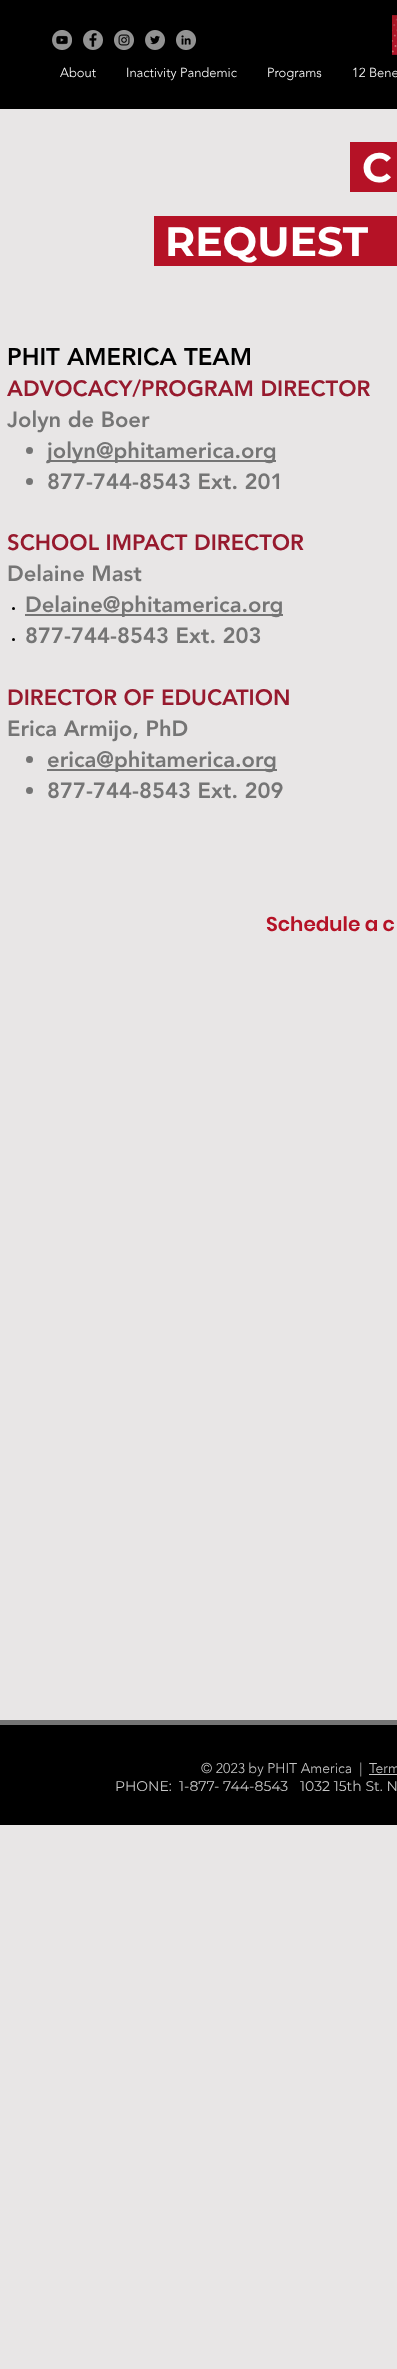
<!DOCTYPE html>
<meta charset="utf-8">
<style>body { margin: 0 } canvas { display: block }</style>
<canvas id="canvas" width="397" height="2369"></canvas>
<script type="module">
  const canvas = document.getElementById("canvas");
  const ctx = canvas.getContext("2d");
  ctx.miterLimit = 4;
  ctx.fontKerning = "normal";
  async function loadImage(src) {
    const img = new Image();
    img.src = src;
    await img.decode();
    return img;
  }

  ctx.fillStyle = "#e8e6e6";
  ctx.fillRect(0, 0, 397, 2369);
  ctx.fillStyle = "#000000";
  ctx.fillRect(0, 0, 397, 109);
  ctx.drawImage(await loadImage("img1.png"), 52, 30, 20, 20);
  ctx.drawImage(await loadImage("img2.png"), 83, 30, 20, 20);
  ctx.drawImage(await loadImage("img3.png"), 114, 30, 20, 20);
  ctx.drawImage(await loadImage("img4.png"), 145, 30, 20, 20);
  ctx.drawImage(await loadImage("img5.png"), 176, 30, 20, 20);
  ctx.drawImage(await loadImage("img6.png"), 392, 15, 5, 40);
  ctx.font = "300 13px 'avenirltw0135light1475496'";
  ctx.fillStyle = "#ffffff";
  ctx.fillText("About", 60, 77);
  ctx.fillText("Inactivity Pandemic", 126, 77);
  ctx.fillText("Programs", 267, 77);
  ctx.fillText("12 Bene", 352, 77);
  ctx.fillStyle = "#b51226";
  ctx.fillRect(350, 142, 47, 50);
  ctx.font = "bold 41px Montserrat";
  ctx.fillStyle = "#ffffff";
  ctx.fillText("C", 362, 182);
  ctx.fillStyle = "#b51226";
  ctx.fillRect(154, 216, 243, 50);
  ctx.fillStyle = "#ffffff";
  ctx.fillText("REQUEST", 165, 256);
  ctx.font = "900 24px 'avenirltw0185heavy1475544'";
  ctx.fillStyle = "#000000";
  ctx.fillText("PHIT AMERICA TEAM", 7, 365);
  ctx.font = "900 22px 'avenirltw0185heavy1475544'";
  ctx.fillStyle = "#971a2e";
  ctx.fillText("ADVOCACY/PROGRAM DIRECTOR", 7, 396);
  ctx.fillStyle = "#757575";
  ctx.fillText("Jolyn de Boer", 7, 427);
  ctx.beginPath();
  ctx.arc(29.5, 450.5, 3.5, 0, Math.PI * 2);
  ctx.fill();
  ctx.fillRect(47, 460, 229, 2);
  ctx.fillText("jolyn@phitamerica.org", 47, 458);
  ctx.beginPath();
  ctx.arc(29.5, 481.5, 3.5, 0, Math.PI * 2);
  ctx.fill();
  ctx.fillText("877-744-8543 Ext. 201", 47, 489);
  ctx.fillStyle = "#971a2e";
  ctx.fillText("SCHOOL IMPACT DIRECTOR", 7, 550);
  ctx.fillStyle = "#757575";
  ctx.fillText("Delaine Mast", 7, 581);
  ctx.fillStyle = "#000000";
  ctx.beginPath();
  ctx.arc(13.5, 608.5, 1.5, 0, Math.PI * 2);
  ctx.fill();
  ctx.fillStyle = "#757575";
  ctx.fillRect(25, 614, 258, 2);
  ctx.fillText("Delaine@phitamerica.org", 25, 612);
  ctx.fillStyle = "#000000";
  ctx.beginPath();
  ctx.arc(13.5, 639.5, 1.5, 0, Math.PI * 2);
  ctx.fill();
  ctx.fillStyle = "#757575";
  ctx.fillText("877-744-8543 Ext. 203", 25, 643);
  ctx.fillStyle = "#971a2e";
  ctx.fillText("DIRECTOR OF EDUCATION", 7, 705);
  ctx.fillStyle = "#757575";
  ctx.fillText("Erica Armijo, PhD", 7, 736);
  ctx.beginPath();
  ctx.arc(29.5, 759.5, 3.5, 0, Math.PI * 2);
  ctx.fill();
  ctx.fillRect(47, 769, 230, 2);
  ctx.fillText("erica@phitamerica.org", 47, 767);
  ctx.beginPath();
  ctx.arc(29.5, 790.5, 3.5, 0, Math.PI * 2);
  ctx.fill();
  ctx.fillText("877-744-8543 Ext. 209", 47, 798);
  ctx.font = "600 20px Poppins";
  ctx.fillStyle = "#b51226";
  ctx.fillText("Schedule a c", 266, 931);
  ctx.fillStyle = "#000000";
  ctx.fillRect(0, 1725, 397, 100);
  ctx.fillStyle = "#757575";
  ctx.fillRect(0, 1720, 397, 5);
  ctx.font = "300 14px 'avenirltw0135light1475496'";
  ctx.fillStyle = "#c7c7c7";
  ctx.fillText("© 2023 by PHIT America  |", 201, 1773);
  ctx.fillText("Term", 369, 1773);
  ctx.fillRect(369, 1774, 28, 1);
  ctx.font = "14px Montserrat";
  ctx.fillText("PHONE:  1-877- 744-8543", 115, 1791);
  ctx.fillText("1032 15th St. N", 300, 1791);
</script>
